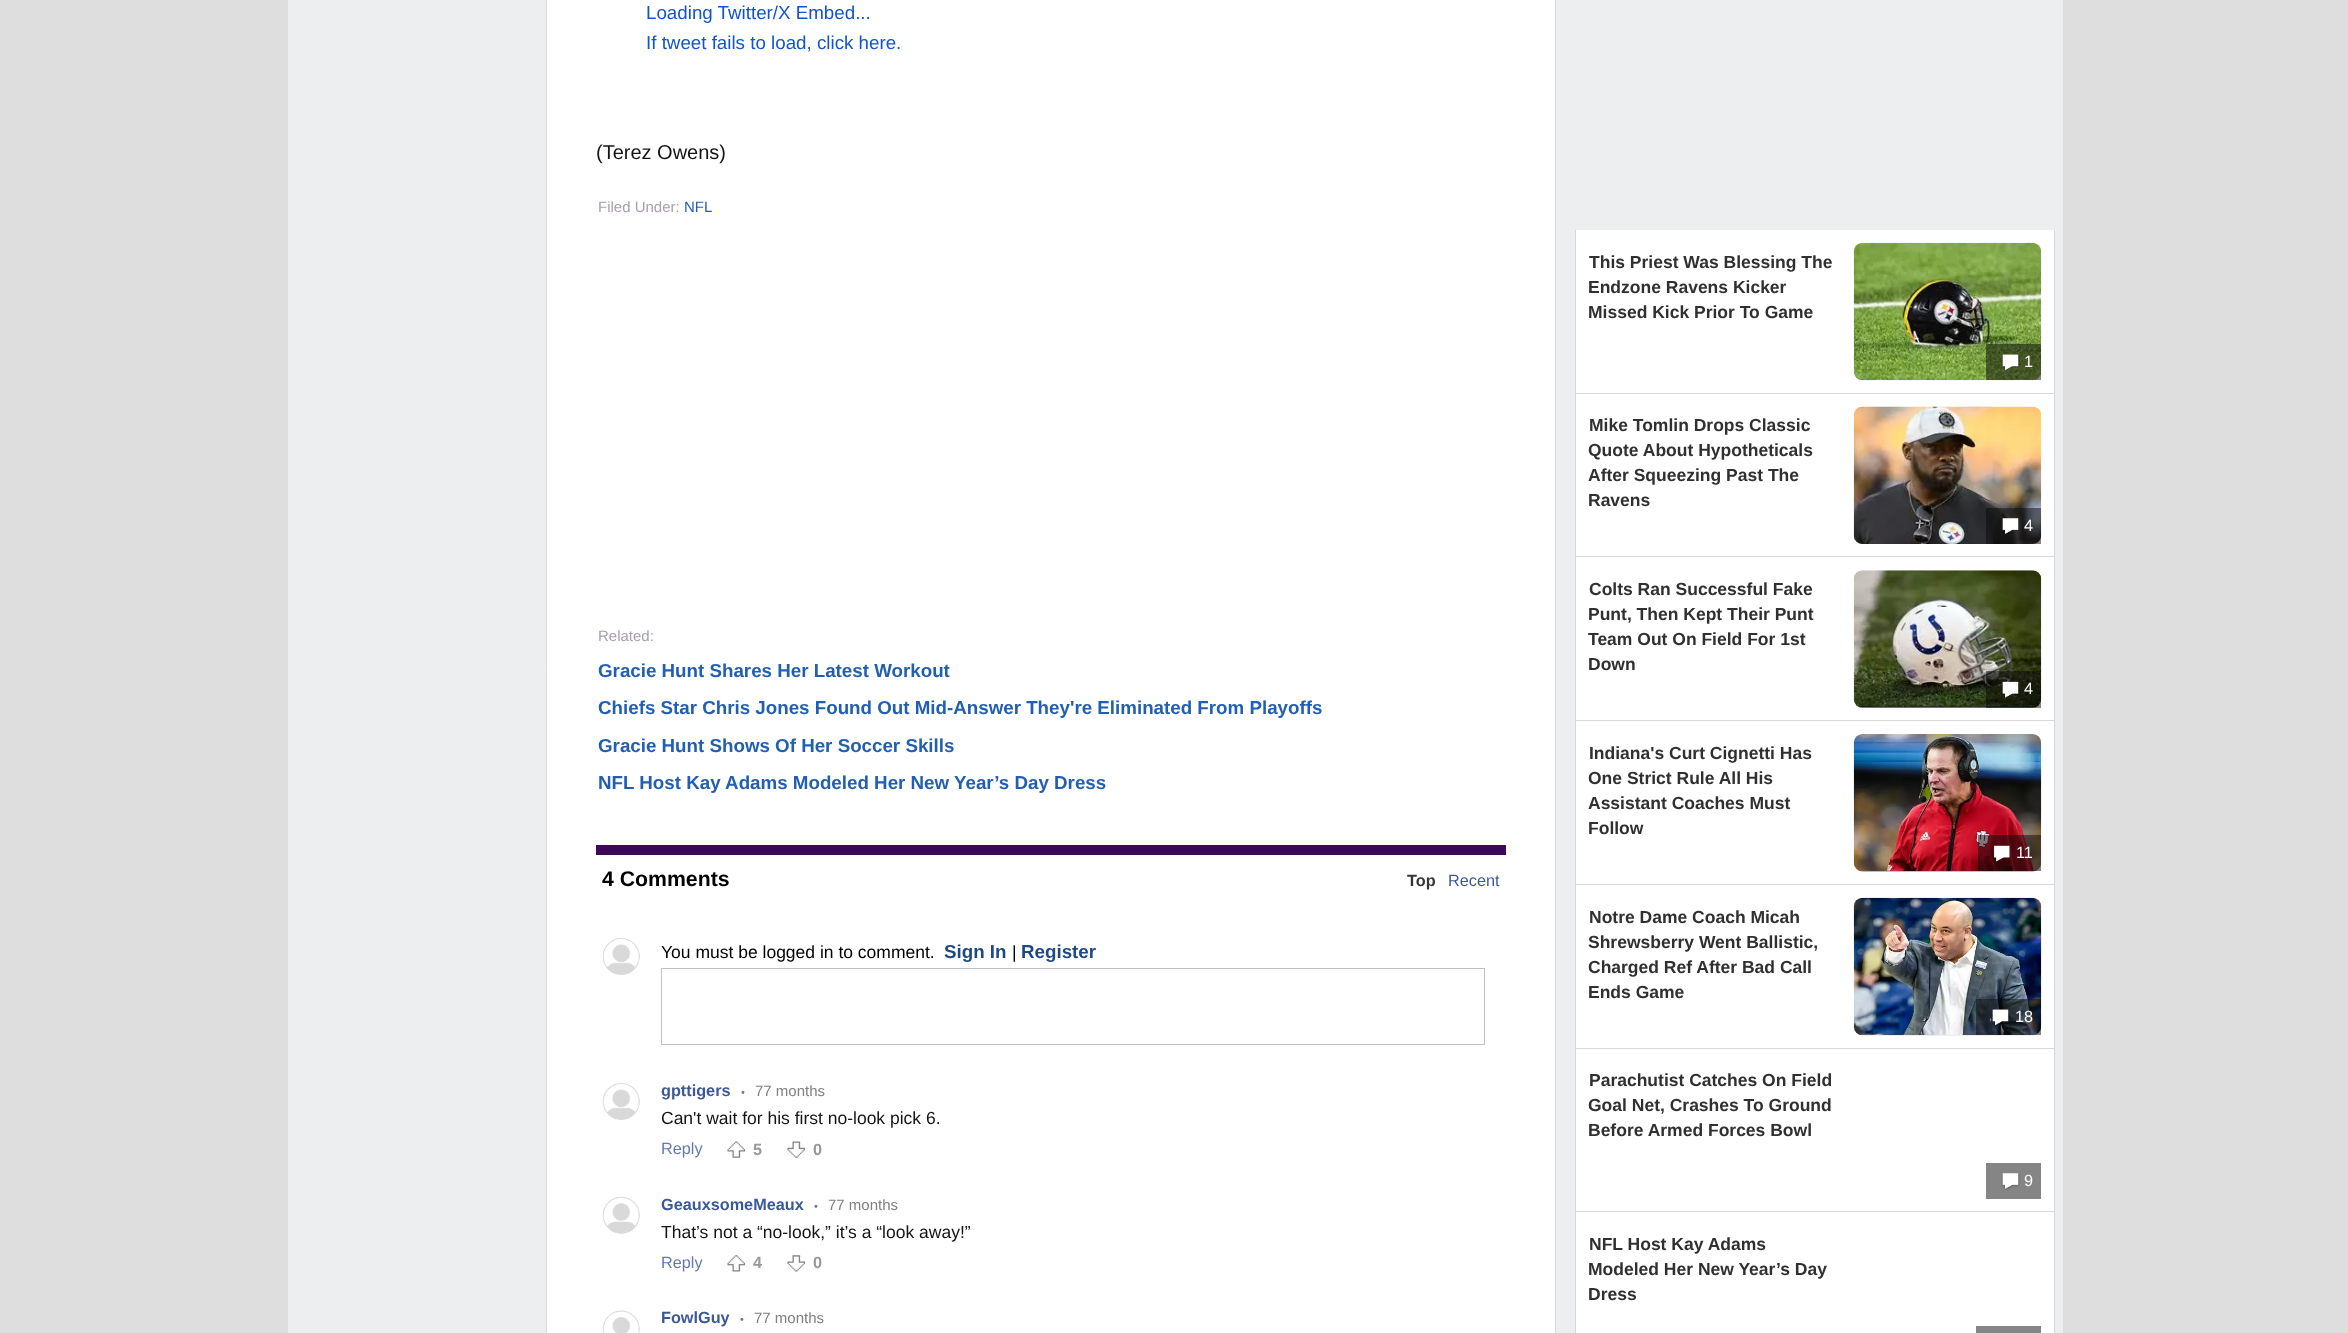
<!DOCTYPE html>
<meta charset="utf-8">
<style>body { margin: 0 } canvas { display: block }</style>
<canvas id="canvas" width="2348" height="1333"></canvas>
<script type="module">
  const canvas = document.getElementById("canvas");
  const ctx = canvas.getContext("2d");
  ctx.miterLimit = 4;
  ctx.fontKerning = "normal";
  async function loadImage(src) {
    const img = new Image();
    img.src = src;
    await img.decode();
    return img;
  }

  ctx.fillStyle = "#dedede";
  ctx.fillRect(0, 0, 2348, 1333);
  ctx.fillStyle = "#edeef0";
  ctx.fillRect(288, 0, 1775, 1333);
  ctx.fillStyle = "#ffffff";
  ctx.beginPath();
  ctx.rect(546.5, -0.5, 1009, 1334);
  ctx.fill();
  ctx.strokeStyle = "#d9d9d9";
  ctx.stroke();
  ctx.font = "18.75px Liberation Sans";
  ctx.fillStyle = "#1155cc";
  ctx.fillText("Loading Twitter/X Embed...", 646, 19);
  ctx.fillText("If tweet fails to load, click here.", 646, 49);
  ctx.font = "20px Liberation Sans";
  ctx.fillStyle = "#141414";
  ctx.fillText("(Terez Owens)", 596, 159);
  ctx.font = "15px Liberation Sans";
  ctx.fillStyle = "#a89eaf";
  ctx.fillText("Filed Under:", 598, 212);
  ctx.fillStyle = "#225fb2";
  ctx.fillText("NFL", 684, 212);
  ctx.fillStyle = "#a89eaf";
  ctx.fillText("Related:", 598, 641);
  ctx.font = "bold 18.75px Liberation Sans";
  ctx.fillStyle = "#225fb2";
  ctx.fillText("Gracie Hunt Shares Her Latest Workout", 598, 677);
  ctx.fillText("Chiefs Star Chris Jones Found Out Mid-Answer They're Eliminated From Playoffs", 598, 714);
  ctx.fillText("Gracie Hunt Shows Of Her Soccer Skills", 598, 752);
  ctx.fillText("NFL Host Kay Adams Modeled Her New Year’s Day Dress", 598, 789);
  ctx.fillStyle = "#3d0858";
  ctx.fillRect(596, 845, 910, 10);
  ctx.font = "bold 21.25px Liberation Sans";
  ctx.fillStyle = "#000000";
  ctx.fillText("4 Comments", 602, 886);
  ctx.font = "bold 16.25px Liberation Sans";
  ctx.fillStyle = "#363636";
  ctx.fillText("Top", 1407, 886);
  ctx.font = "16.25px Liberation Sans";
  ctx.fillStyle = "#3b5998";
  ctx.fillText("Recent", 1448, 886);
  ctx.drawImage(await loadImage("img1.png"), 602, 938, 38, 37);
  ctx.font = "17.5px Liberation Sans";
  ctx.fillStyle = "#000000";
  ctx.fillText("You must be logged in to comment.", 661, 958);
  ctx.font = "bold 18.75px Liberation Sans";
  ctx.fillStyle = "#1e4983";
  ctx.fillText("Sign In", 944, 958);
  ctx.font = "17.5px Liberation Sans";
  ctx.fillStyle = "#000000";
  ctx.fillText("|", 1012, 958);
  ctx.font = "bold 18.75px Liberation Sans";
  ctx.fillStyle = "#1e4983";
  ctx.fillText("Register", 1021, 958);
  ctx.strokeStyle = "#c0c0c0";
  ctx.strokeRect(661.5, 968.5, 823, 76);
  ctx.drawImage(await loadImage("img2.png"), 602, 1083, 38, 37);
  ctx.font = "bold 16.25px Liberation Sans";
  ctx.fillStyle = "#3b5998";
  ctx.fillText("gpttigers", 661, 1096);
  ctx.font = "11px Liberation Sans";
  ctx.fillStyle = "#627aad";
  ctx.fillText("•", 741, 1096);
  ctx.font = "15px Liberation Sans";
  ctx.fillStyle = "#808080";
  ctx.fillText("77 months", 755, 1096);
  ctx.font = "17.5px Liberation Sans";
  ctx.fillStyle = "#141414";
  ctx.fillText("Can't wait for his first no-look pick 6.", 661, 1124);
  ctx.font = "16.25px Liberation Sans";
  ctx.fillStyle = "#627aad";
  ctx.fillText("Reply", 661, 1154);
  ctx.drawImage(await loadImage("img3.png"), 727, 1141, 18, 17);
  ctx.font = "bold 16.25px Liberation Sans";
  ctx.fillStyle = "#999999";
  ctx.fillText("5", 753, 1155);
  ctx.drawImage(await loadImage("img4.png"), 787, 1141, 18, 17);
  ctx.fillText("0", 813, 1155);
  ctx.drawImage(await loadImage("img5.png"), 602, 1196, 38, 38);
  ctx.fillStyle = "#3b5998";
  ctx.fillText("GeauxsomeMeaux", 661, 1210);
  ctx.font = "11px Liberation Sans";
  ctx.fillStyle = "#627aad";
  ctx.fillText("•", 814, 1210);
  ctx.font = "15px Liberation Sans";
  ctx.fillStyle = "#808080";
  ctx.fillText("77 months", 828, 1210);
  ctx.font = "17.5px Liberation Sans";
  ctx.fillStyle = "#141414";
  ctx.fillText("That’s not a “no-look,” it’s a “look away!”", 661, 1238);
  ctx.font = "16.25px Liberation Sans";
  ctx.fillStyle = "#627aad";
  ctx.fillText("Reply", 661, 1268);
  ctx.drawImage(await loadImage("img6.png"), 727, 1255, 18, 17);
  ctx.font = "bold 16.25px Liberation Sans";
  ctx.fillStyle = "#999999";
  ctx.fillText("4", 753, 1268);
  ctx.drawImage(await loadImage("img7.png"), 787, 1255, 18, 17);
  ctx.fillText("0", 813, 1268);
  ctx.drawImage(await loadImage("img8.png"), 602, 1310, 38, 23);
  ctx.fillStyle = "#3b5998";
  ctx.fillText("FowlGuy", 661, 1323);
  ctx.font = "11px Liberation Sans";
  ctx.fillStyle = "#627aad";
  ctx.fillText("•", 740, 1323);
  ctx.font = "15px Liberation Sans";
  ctx.fillStyle = "#808080";
  ctx.fillText("77 months", 754, 1323);
  ctx.fillStyle = "#ffffff";
  ctx.fillRect(1576, 230, 478, 163);
  ctx.fillStyle = "#d9d9d9";
  ctx.fillRect(2054, 230, 1, 1103);
  ctx.fillRect(1575, 393, 480, 1);
  ctx.fillRect(1575, 230, 1, 164);
  ctx.font = "bold 17.5px Liberation Sans";
  ctx.fillStyle = "#303030";
  ctx.fillText("This Priest Was Blessing The", 1589, 268);
  ctx.fillText("Endzone Ravens Kicker", 1588, 293);
  ctx.fillText("Missed Kick Prior To Game", 1588, 318);
  ctx.drawImage(await loadImage("img9.png"), 1853, 242, 189, 139);
  ctx.fillStyle = "rgba(10, 10, 10, 0.5)";
  ctx.fillRect(1986, 344, 55, 36);
  ctx.drawImage(await loadImage("img10.png"), 2001, 354, 19, 17);
  ctx.font = "16.25px Liberation Sans";
  ctx.fillStyle = "#fdfcfc";
  ctx.fillText("1", 2024, 367);
  ctx.fillStyle = "#ffffff";
  ctx.fillRect(1576, 394, 478, 326);
  ctx.fillStyle = "#d9d9d9";
  ctx.fillRect(1575, 556, 480, 1);
  ctx.fillRect(1575, 394, 1, 164);
  ctx.font = "bold 17.5px Liberation Sans";
  ctx.fillStyle = "#303030";
  ctx.fillText("Mike Tomlin Drops Classic", 1589, 431);
  ctx.fillText("Quote About Hypotheticals", 1588, 456);
  ctx.fillText("After Squeezing Past The", 1588, 481);
  ctx.fillText("Ravens", 1588, 506);
  ctx.drawImage(await loadImage("img11.png"), 1853, 406, 189, 138);
  ctx.fillStyle = "rgba(10, 10, 10, 0.5)";
  ctx.fillRect(1986, 508, 55, 36);
  ctx.drawImage(await loadImage("img12.png"), 2002, 518, 17, 16);
  ctx.font = "16.25px Liberation Sans";
  ctx.fillStyle = "#fdfcfc";
  ctx.fillText("4", 2024, 531);
  ctx.fillStyle = "#d9d9d9";
  ctx.fillRect(1575, 720, 480, 1);
  ctx.fillRect(1575, 558, 1, 163);
  ctx.font = "bold 17.5px Liberation Sans";
  ctx.fillStyle = "#303030";
  ctx.fillText("Colts Ran Successful Fake", 1589, 595);
  ctx.fillText("Punt, Then Kept Their Punt", 1588, 620);
  ctx.fillText("Team Out On Field For 1st", 1588, 645);
  ctx.fillText("Down", 1588, 670);
  ctx.drawImage(await loadImage("img13.png"), 1853, 570, 189, 138);
  ctx.fillStyle = "rgba(10, 10, 10, 0.5)";
  ctx.fillRect(1986, 671, 55, 37);
  ctx.drawImage(await loadImage("img14.png"), 2002, 681, 17, 17);
  ctx.font = "16.25px Liberation Sans";
  ctx.fillStyle = "#fdfcfc";
  ctx.fillText("4", 2024, 694);
  ctx.fillStyle = "#ffffff";
  ctx.fillRect(1576, 721, 478, 163);
  ctx.fillStyle = "#d9d9d9";
  ctx.fillRect(1575, 884, 480, 1);
  ctx.fillRect(1575, 721, 1, 164);
  ctx.font = "bold 17.5px Liberation Sans";
  ctx.fillStyle = "#303030";
  ctx.fillText("Indiana's Curt Cignetti Has", 1589, 759);
  ctx.fillText("One Strict Rule All His", 1588, 784);
  ctx.fillText("Assistant Coaches Must", 1588, 809);
  ctx.fillText("Follow", 1588, 834);
  ctx.drawImage(await loadImage("img15.png"), 1853, 734, 189, 138);
  ctx.fillStyle = "rgba(10, 10, 10, 0.5)";
  ctx.fillRect(1978, 835, 63, 36);
  ctx.drawImage(await loadImage("img16.png"), 1993, 845, 18, 17);
  ctx.font = "16.25px Liberation Sans";
  ctx.fillStyle = "#fdfcfc";
  ctx.fillText("11", 2016, 858);
  ctx.fillStyle = "#ffffff";
  ctx.fillRect(1576, 885, 478, 163);
  ctx.fillStyle = "#d9d9d9";
  ctx.fillRect(1575, 1048, 480, 1);
  ctx.fillRect(1575, 885, 1, 164);
  ctx.font = "bold 17.5px Liberation Sans";
  ctx.fillStyle = "#303030";
  ctx.fillText("Notre Dame Coach Micah", 1589, 923);
  ctx.fillText("Shrewsberry Went Ballistic,", 1588, 948);
  ctx.fillText("Charged Ref After Bad Call", 1588, 973);
  ctx.fillText("Ends Game", 1588, 998);
  ctx.drawImage(await loadImage("img17.png"), 1853, 897, 189, 139);
  ctx.fillStyle = "rgba(10, 10, 10, 0.5)";
  ctx.fillRect(1976, 999, 65, 36);
  ctx.drawImage(await loadImage("img18.png"), 1991, 1009, 18, 17);
  ctx.font = "16.25px Liberation Sans";
  ctx.fillStyle = "#fdfcfc";
  ctx.fillText("18", 2015, 1022);
  ctx.fillStyle = "#ffffff";
  ctx.fillRect(1576, 1049, 478, 284);
  ctx.fillStyle = "#d9d9d9";
  ctx.fillRect(1575, 1211, 480, 1);
  ctx.fillRect(1575, 1049, 1, 284);
  ctx.font = "bold 17.5px Liberation Sans";
  ctx.fillStyle = "#303030";
  ctx.fillText("Parachutist Catches On Field", 1589, 1086);
  ctx.fillText("Goal Net, Crashes To Ground", 1588, 1111);
  ctx.fillText("Before Armed Forces Bowl", 1588, 1136);
  ctx.fillStyle = "#858585";
  ctx.fillRect(1986, 1163, 55, 36);
  ctx.drawImage(await loadImage("img19.png"), 2001, 1173, 19, 17);
  ctx.font = "16.25px Liberation Sans";
  ctx.fillStyle = "#fdfcfc";
  ctx.fillText("9", 2024, 1186);
  ctx.font = "bold 17.5px Liberation Sans";
  ctx.fillStyle = "#303030";
  ctx.fillText("NFL Host Kay Adams", 1589, 1250);
  ctx.fillText("Modeled Her New Year’s Day", 1588, 1275);
  ctx.fillText("Dress", 1588, 1300);
  ctx.fillStyle = "#858585";
  ctx.fillRect(1976, 1326, 65, 7);
</script>
